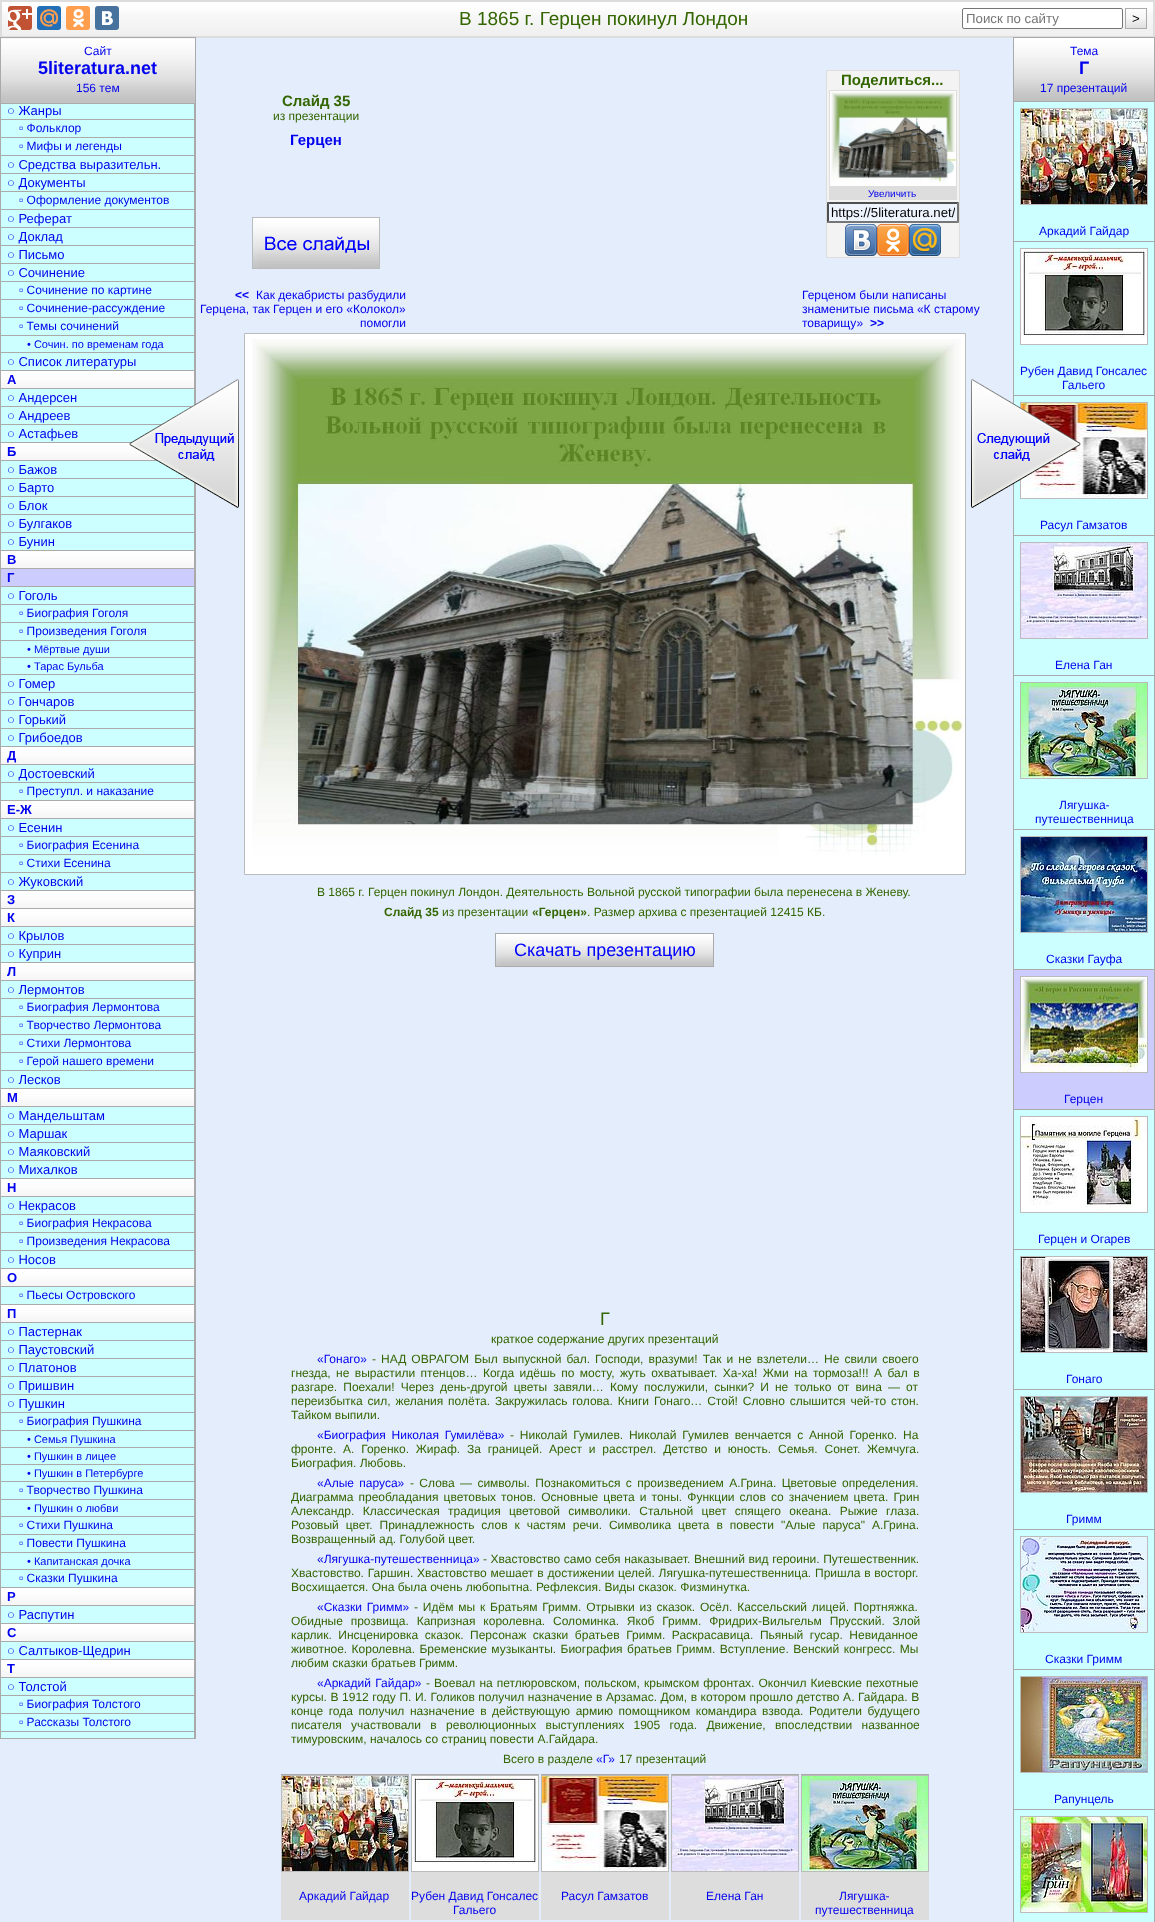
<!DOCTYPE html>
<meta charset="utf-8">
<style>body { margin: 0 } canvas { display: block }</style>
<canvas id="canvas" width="1155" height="1922"></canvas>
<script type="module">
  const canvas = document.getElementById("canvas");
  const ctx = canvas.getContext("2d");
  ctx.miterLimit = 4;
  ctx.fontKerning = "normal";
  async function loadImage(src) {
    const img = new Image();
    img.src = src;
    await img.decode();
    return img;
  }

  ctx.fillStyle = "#e3edfb";
  ctx.fillRect(0, 0, 1155, 1922);
  ctx.drawImage(await loadImage("img1.png"), 2, 2, 1151, 34);
  ctx.strokeStyle = "#dddddd";
  ctx.lineWidth = 2;
  ctx.strokeRect(1, 1, 1153, 36);
  ctx.fillStyle = "#c25234";
  ctx.beginPath();
  ctx.roundRect(8, 6, 24, 24, 3);
  ctx.fill();
  ctx.drawImage(await loadImage("img2.png"), 8, 9, 24, 21);
  ctx.fillStyle = "#226eb7";
  ctx.beginPath();
  ctx.roundRect(37, 6, 24, 24, 3);
  ctx.fill();
  ctx.drawImage(await loadImage("img3.png"), 40, 9, 18, 18);
  ctx.fillStyle = "#ff9f4d";
  ctx.beginPath();
  ctx.roundRect(66, 6, 24, 24, 3);
  ctx.fill();
  ctx.drawImage(await loadImage("img4.png"), 73, 9, 11, 18);
  ctx.fillStyle = "#48729e";
  ctx.beginPath();
  ctx.roundRect(95, 6, 24, 24, 3);
  ctx.fill();
  ctx.drawImage(await loadImage("img5.png"), 102, 11, 11, 14);
  ctx.font = "19px Liberation Sans";
  ctx.fillStyle = "#336600";
  ctx.fillText("В 1865 г. Герцен покинул Лондон", 459, 25);
  ctx.fillStyle = "#ffffff";
  ctx.beginPath();
  ctx.roundRect(962.5, 8.5, 160, 20, 1.5);
  ctx.fill();
  ctx.strokeStyle = "#767676";
  ctx.lineWidth = 1;
  ctx.stroke();
  ctx.font = "13.25px Liberation Sans";
  ctx.fillStyle = "#757575";
  ctx.fillText("Поиск по сайту", 966, 23);
  ctx.drawImage(await loadImage("img6.png"), 1126, 19, 20, 9);
  ctx.strokeStyle = "#aaaaaa";
  ctx.strokeRect(1125.5, 8.5, 21, 20);
  ctx.fillStyle = "#000000";
  ctx.fillText(">", 1132, 23);
  ctx.drawImage(await loadImage("img7.png"), 1, 38, 194, 65);
  ctx.strokeRect(0.5, 37.5, 195, 66);
  ctx.font = "12px Liberation Sans";
  ctx.fillStyle = "#0000ee";
  ctx.fillText("Сайт", 84, 55);
  ctx.font = "bold 18px Liberation Sans";
  ctx.fillText("5literatura.net", 38, 74);
  ctx.font = "12px Liberation Sans";
  ctx.fillText("156 тем", 76, 92);
  ctx.font = "bold 15px Liberation Sans";
  ctx.fillStyle = "#336600";
  ctx.fillText("Cлайд 35", 282, 106);
  ctx.font = "12px Liberation Sans";
  ctx.fillText("из презентации", 273, 120);
  ctx.font = "bold 15px Liberation Sans";
  ctx.fillStyle = "#0000ee";
  ctx.fillText("Герцен", 290, 145);
  ctx.drawImage(await loadImage("img8.png"), 253, 218, 126, 50);
  ctx.strokeStyle = "#bbbbbb";
  ctx.strokeRect(252.5, 217.5, 127, 51);
  ctx.fillStyle = "#f3f3f3";
  ctx.beginPath();
  ctx.rect(826.5, 70.5, 133, 187);
  ctx.fill();
  ctx.strokeStyle = "#dddddd";
  ctx.stroke();
  ctx.fillStyle = "#336600";
  ctx.fillText("Поделиться...", 841, 85);
  ctx.fillStyle = "#dddddd";
  ctx.fillRect(829, 90, 128, 110);
  ctx.drawImage(await loadImage("img9.png"), 830, 91, 126, 95);
  ctx.font = "10px Liberation Sans";
  ctx.fillStyle = "#0000ee";
  ctx.fillText("Увеличить", 868, 197);
  ctx.fillStyle = "#eef4fd";
  ctx.fillRect(827, 202, 132, 21);
  ctx.fillStyle = "#4f4f4f";
  ctx.beginPath();
  ctx.moveTo(827, 202);
  ctx.lineTo(959, 202);
  ctx.lineTo(957, 204);
  ctx.lineTo(829, 204);
  ctx.closePath();
  ctx.fill();
  ctx.fillStyle = "#767676";
  ctx.beginPath();
  ctx.moveTo(959, 202);
  ctx.lineTo(959, 223);
  ctx.lineTo(957, 221);
  ctx.lineTo(957, 204);
  ctx.closePath();
  ctx.fill();
  ctx.beginPath();
  ctx.moveTo(959, 223);
  ctx.lineTo(827, 223);
  ctx.lineTo(829, 221);
  ctx.lineTo(957, 221);
  ctx.closePath();
  ctx.fill();
  ctx.fillStyle = "#4f4f4f";
  ctx.beginPath();
  ctx.moveTo(827, 223);
  ctx.lineTo(827, 202);
  ctx.lineTo(829, 204);
  ctx.lineTo(829, 221);
  ctx.closePath();
  ctx.fill();
  ctx.save();
  ctx.beginPath();
  ctx.rect(831, 205, 124, 15);
  ctx.clip();
  ctx.font = "13.25px Liberation Sans";
  ctx.fillStyle = "#000000";
  ctx.fillText("https://5literatura.net/", 831, 217);
  ctx.restore();
  ctx.drawImage(await loadImage("img10.png"), 845, 224, 32, 32);
  ctx.drawImage(await loadImage("img11.png"), 877, 224, 32, 32);
  ctx.drawImage(await loadImage("img12.png"), 909, 224, 32, 32);
  ctx.font = "bold 12px Liberation Sans";
  ctx.fillStyle = "#0000ee";
  ctx.fillText("<<", 235, 299);
  ctx.font = "12px Liberation Sans";
  ctx.fillText("Как декабристы разбудили", 256, 299);
  ctx.fillText("Герцена, так Герцен и его «Колокол»", 200, 313);
  ctx.fillText("помогли", 360, 327);
  ctx.fillStyle = "#ccffff";
  ctx.fillRect(1, 104, 193, 1634);
  ctx.strokeStyle = "#aaaaaa";
  ctx.strokeRect(0.5, 103.5, 195, 1635);
  ctx.fillStyle = "#aaaaaa";
  ctx.fillRect(194, 104, 1, 303);
  ctx.drawImage(await loadImage("img32.png"), 1, 371, 193, 17);
  ctx.fillRect(1, 388, 194, 1);
  ctx.fillRect(1, 406, 194, 1);
  ctx.fillRect(1, 424, 161, 1);
  ctx.fillRect(1, 442, 130, 1);
  ctx.drawImage(await loadImage("img33.png"), 1, 443, 154, 17);
  ctx.fillRect(1, 460, 156, 1);
  ctx.fillRect(1, 478, 194, 1);
  ctx.fillRect(194, 479, 1, 1259);
  ctx.fillRect(1, 496, 194, 1);
  ctx.drawImage(await loadImage("img13.png"), 129, 379, 110, 129);
  ctx.fillStyle = "#0000ee";
  ctx.fillText("Герценом были написаны", 802, 299);
  ctx.fillText("знаменитые письма «К старому", 802, 313);
  ctx.fillText("товарищу»", 802, 327);
  ctx.font = "bold 12px Liberation Sans";
  ctx.fillText(">>", 870, 327);
  ctx.strokeRect(1013.5, 37.5, 141, 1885);
  ctx.fillStyle = "#ccffff";
  ctx.fillRect(1014, 242, 140, 153);
  ctx.font = "12px Liberation Sans";
  ctx.fillStyle = "#0000ee";
  ctx.fillText("Гальего", 1062, 389);
  ctx.fillStyle = "#ccffff";
  ctx.fillRect(1014, 396, 140, 139);
  ctx.fillStyle = "#aaaaaa";
  ctx.fillRect(1014, 395, 140, 1);
  ctx.strokeStyle = "#bbbbbb";
  ctx.strokeRect(1020.5, 402.5, 127, 96);
  ctx.drawImage(await loadImage("img23.png"), 1021, 403, 126, 95);
  ctx.drawImage(await loadImage("img14.png"), 971, 379, 110, 129);
  ctx.fillStyle = "#ffffff";
  ctx.beginPath();
  ctx.rect(244.5, 333.5, 721, 541);
  ctx.fill();
  ctx.stroke();
  ctx.drawImage(await loadImage("img15.png"), 252, 339, 712, 516);
  ctx.fillStyle = "#336600";
  ctx.fillText("В 1865 г. Герцен покинул Лондон. Деятельность Вольной русской типографии была перенесена в Женеву.", 317, 896);
  ctx.font = "bold 12px Liberation Sans";
  ctx.fillText("Слайд 35", 384, 916);
  ctx.font = "12px Liberation Sans";
  ctx.fillText("из презентации", 442, 916);
  ctx.font = "bold 12px Liberation Sans";
  ctx.fillText("«Герцен»", 532, 916);
  ctx.font = "12px Liberation Sans";
  ctx.fillText(". Размер архива с презентацией 12415 КБ.", 587, 916);
  ctx.drawImage(await loadImage("img16.png"), 496, 934, 217, 32);
  ctx.strokeStyle = "#aaaaaa";
  ctx.strokeRect(495.5, 933.5, 218, 33);
  ctx.font = "18px Liberation Sans";
  ctx.fillStyle = "#0000ff";
  ctx.fillText("Скачать презентацию", 514, 956);
  ctx.fillStyle = "#336600";
  ctx.fillText("Г", 600, 1325);
  ctx.font = "12px Liberation Sans";
  ctx.fillText("краткое содержание других презентаций", 491, 1343);
  ctx.fillStyle = "#0000ee";
  ctx.fillText("«Гонаго»", 317, 1363);
  ctx.wordSpacing = "1.75px";
  ctx.fillStyle = "#336600";
  ctx.fillText("- НАД ОВРАГОМ Был выпускной бал. Господи, вразуми! Так и не взлетели… Не свили своего", 372, 1363);
  ctx.wordSpacing = "2.1px";
  ctx.fillText("гнезда, не вырастили птенцов… Когда идёшь по мосту, жуть охватывает. Ха-ха! Жми на тормоза!!! А бал в", 291, 1377);
  ctx.wordSpacing = "2.75px";
  ctx.fillText("разгаре. Поехали! Через день-другой цветы завяли… Кому послужили, сынки? И не только от вина — от", 291, 1391);
  ctx.wordSpacing = "1.5px";
  ctx.fillText("переизбытка сил, желания полёта. Закружилась голова. Книги Гонаго… Стой! Словно слышится чей-то стон.", 291, 1405);
  ctx.wordSpacing = "0px";
  ctx.fillText("Тайком выпили.", 291, 1419);
  ctx.wordSpacing = "2.5px";
  ctx.fillStyle = "#0000ee";
  ctx.fillText("«Биография Николая Гумилёва»", 317, 1439);
  ctx.fillStyle = "#336600";
  ctx.fillText("- Николай Гумилев. Николай Гумилев венчается с Анной Горенко. На", 510, 1439);
  ctx.wordSpacing = "3.5px";
  ctx.fillText("фронте. А. Горенко. Жираф. За границей. Арест и расстрел. Детство и юность. Семья. Сонет. Жемчуга.", 291, 1453);
  ctx.wordSpacing = "0px";
  ctx.fillText("Биография. Любовь.", 291, 1467);
  ctx.wordSpacing = "2px";
  ctx.fillStyle = "#0000ee";
  ctx.fillText("«Алые паруса»", 317, 1487);
  ctx.fillStyle = "#336600";
  ctx.fillText("- Слова — символы. Познакомиться с произведением А.Грина. Цветовые определения.", 410, 1487);
  ctx.wordSpacing = "1.75px";
  ctx.fillText("Диаграмма преобладания цветовых тонов. Основные цвета и тоны. Функции слов со значением цвета. Грин", 291, 1501);
  ctx.wordSpacing = "5px";
  ctx.fillText("Александр. Классическая традиция цветовой символики. Стальной цвет спящего океана. Рыжие глаза.", 291, 1515);
  ctx.wordSpacing = "3.6px";
  ctx.fillText("Розовый цвет. Принадлежность слов к частям речи. Символика цвета в повести \"Алые паруса\" А.Грина.", 291, 1529);
  ctx.wordSpacing = "0px";
  ctx.fillText("Возвращенный ад. Голубой цвет.", 291, 1543);
  ctx.fillStyle = "#0000ee";
  ctx.fillText("«Лягушка-путешественница»", 317, 1563);
  ctx.wordSpacing = "0.25px";
  ctx.fillStyle = "#336600";
  ctx.fillText("- Хвастовство само себя наказывает. Внешний вид героини. Путешественник.", 483, 1563);
  ctx.wordSpacing = "0.5px";
  ctx.fillText("Хвастовство. Гаршин. Хвастовство мешает в достижении целей. Лягушка-путешественница. Пришла в восторг.", 291, 1577);
  ctx.wordSpacing = "0px";
  ctx.fillText("Восхищается. Она была очень любопытна. Рефлексия. Виды сказок. Физминутка.", 291, 1591);
  ctx.wordSpacing = "1.5px";
  ctx.fillStyle = "#0000ee";
  ctx.fillText("«Сказки Гримм»", 317, 1611);
  ctx.fillStyle = "#336600";
  ctx.fillText("- Идём мы к Братьям Гримм. Отрывки из сказок. Осёл. Кассельский лицей. Портняжка.", 414, 1611);
  ctx.wordSpacing = "4.5px";
  ctx.fillText("Обидные прозвища. Капризная королевна. Соломинка. Якоб Гримм. Фридрих-Вильгельм Прусский. Злой", 291, 1625);
  ctx.wordSpacing = "3.25px";
  ctx.fillText("карлик. Инсценировка сказок. Персонаж сказки братьев Гримм. Раскрасавица. Пьяный гусар. Невиданное", 291, 1639);
  ctx.wordSpacing = "1.1px";
  ctx.fillText("животное. Королевна. Бременские музыканты. Биография братьев Гримм. Вступление. Венский конгресс. Мы", 291, 1653);
  ctx.wordSpacing = "0px";
  ctx.fillText("любим сказки братьев Гримм.", 291, 1667);
  ctx.wordSpacing = "1px";
  ctx.fillStyle = "#0000ee";
  ctx.fillText("«Аркадий Гайдар»", 317, 1687);
  ctx.wordSpacing = "0.75px";
  ctx.fillStyle = "#336600";
  ctx.fillText("- Воевал на петлюровском, польском, крымском фронтах. Окончил Киевские пехотные", 426, 1687);
  ctx.wordSpacing = "0.25px";
  ctx.fillText("курсы. В 1912 году П. И. Голиков получил назначение в Арзамас. Дом, в котором прошло детство А. Гайдара. В", 291, 1701);
  ctx.wordSpacing = "2.25px";
  ctx.fillText("конце года получил назначение в действующую армию помощником командира взвода. Родители будущего", 291, 1715);
  ctx.wordSpacing = "6px";
  ctx.fillText("писателя участвовали в революционных выступлениях 1905 года. Движение, впоследствии названное", 291, 1729);
  ctx.wordSpacing = "0px";
  ctx.fillText("тимуровским, началось со страниц повести А.Гайдара.", 291, 1743);
  ctx.fillText("Всего в разделе", 503, 1763);
  ctx.fillStyle = "#0000ee";
  ctx.fillText("«Г»", 596, 1763);
  ctx.fillStyle = "#336600";
  ctx.fillText("17 презентаций", 619, 1763);
  ctx.fillStyle = "#dddddd";
  ctx.fillRect(281, 1872, 128, 48);
  ctx.fillStyle = "#aaaaaa";
  ctx.fillRect(281, 1774, 128, 1);
  ctx.strokeStyle = "#bbbbbb";
  ctx.strokeRect(281.5, 1775.5, 127, 96);
  ctx.drawImage(await loadImage("img17.png"), 282, 1776, 126, 95);
  ctx.fillStyle = "#0000ee";
  ctx.fillText("Аркадий Гайдар", 299, 1900);
  ctx.fillStyle = "#dddddd";
  ctx.fillRect(411, 1872, 128, 48);
  ctx.fillStyle = "#aaaaaa";
  ctx.fillRect(411, 1774, 128, 1);
  ctx.strokeRect(411.5, 1775.5, 127, 96);
  ctx.drawImage(await loadImage("img18.png"), 412, 1776, 126, 95);
  ctx.fillStyle = "#0000ee";
  ctx.fillText("Рубен Давид Гонсалес", 411, 1900);
  ctx.fillText("Гальего", 453, 1914);
  ctx.fillStyle = "#dddddd";
  ctx.fillRect(541, 1872, 128, 48);
  ctx.fillStyle = "#aaaaaa";
  ctx.fillRect(541, 1774, 128, 1);
  ctx.strokeRect(541.5, 1775.5, 127, 96);
  ctx.drawImage(await loadImage("img19.png"), 542, 1776, 126, 95);
  ctx.fillStyle = "#0000ee";
  ctx.fillText("Расул Гамзатов", 561, 1900);
  ctx.fillStyle = "#dddddd";
  ctx.fillRect(671, 1872, 128, 48);
  ctx.fillStyle = "#aaaaaa";
  ctx.fillRect(671, 1774, 128, 1);
  ctx.strokeRect(671.5, 1775.5, 127, 96);
  ctx.drawImage(await loadImage("img20.png"), 672, 1776, 126, 95);
  ctx.fillStyle = "#0000ee";
  ctx.fillText("Елена Ган", 706, 1900);
  ctx.fillStyle = "#dddddd";
  ctx.fillRect(801, 1872, 128, 48);
  ctx.fillStyle = "#aaaaaa";
  ctx.fillRect(801, 1774, 128, 1);
  ctx.strokeRect(801.5, 1775.5, 127, 96);
  ctx.drawImage(await loadImage("img21.png"), 802, 1776, 126, 95);
  ctx.fillStyle = "#0000ee";
  ctx.fillText("Лягушка-", 839, 1900);
  ctx.fillText("путешественница", 815, 1914);
  ctx.drawImage(await loadImage("img22.png"), 1014, 38, 140, 63);
  ctx.fillText("Тема", 1070, 55);
  ctx.font = "bold 18px Liberation Sans";
  ctx.fillText("Г", 1079, 74);
  ctx.font = "12px Liberation Sans";
  ctx.fillText("17 презентаций", 1040, 92);
  ctx.fillStyle = "#ccffff";
  ctx.fillRect(1014, 102, 140, 139);
  ctx.fillStyle = "#aaaaaa";
  ctx.fillRect(1014, 101, 140, 1);
  ctx.strokeRect(1020.5, 108.5, 127, 96);
  ctx.drawImage(await loadImage("img17.png"), 1021, 109, 126, 95);
  ctx.fillStyle = "#0000ee";
  ctx.fillText("Аркадий Гайдар", 1039, 235);
  ctx.fillStyle = "#aaaaaa";
  ctx.fillRect(1014, 241, 140, 1);
  ctx.strokeRect(1020.5, 248.5, 127, 96);
  ctx.drawImage(await loadImage("img18.png"), 1021, 249, 126, 95);
  ctx.fillStyle = "#0000ee";
  ctx.fillText("Рубен Давид Гонсалес", 1020, 375);
  ctx.fillText("Расул Гамзатов", 1040, 529);
  ctx.fillStyle = "#ccffff";
  ctx.fillRect(1014, 536, 140, 139);
  ctx.fillStyle = "#aaaaaa";
  ctx.fillRect(1014, 535, 140, 1);
  ctx.strokeRect(1020.5, 542.5, 127, 96);
  ctx.drawImage(await loadImage("img20.png"), 1021, 543, 126, 95);
  ctx.fillStyle = "#0000ee";
  ctx.fillText("Елена Ган", 1055, 669);
  ctx.fillStyle = "#ccffff";
  ctx.fillRect(1014, 676, 140, 153);
  ctx.fillStyle = "#aaaaaa";
  ctx.fillRect(1014, 675, 140, 1);
  ctx.strokeRect(1020.5, 682.5, 127, 96);
  ctx.drawImage(await loadImage("img21.png"), 1021, 683, 126, 95);
  ctx.fillStyle = "#0000ee";
  ctx.fillText("Лягушка-", 1059, 809);
  ctx.fillText("путешественница", 1035, 823);
  ctx.fillStyle = "#ccffff";
  ctx.fillRect(1014, 830, 140, 139);
  ctx.fillStyle = "#aaaaaa";
  ctx.fillRect(1014, 829, 140, 1);
  ctx.strokeRect(1020.5, 836.5, 127, 96);
  ctx.drawImage(await loadImage("img24.png"), 1021, 837, 126, 95);
  ctx.fillStyle = "#0000ee";
  ctx.fillText("Сказки Гауфа", 1046, 963);
  ctx.fillStyle = "#ccccff";
  ctx.fillRect(1014, 970, 140, 139);
  ctx.fillStyle = "#aaaaaa";
  ctx.fillRect(1014, 969, 140, 1);
  ctx.strokeRect(1020.5, 976.5, 127, 96);
  ctx.drawImage(await loadImage("img25.png"), 1021, 977, 126, 95);
  ctx.fillStyle = "#0000ee";
  ctx.fillText("Герцен", 1064, 1103);
  ctx.fillStyle = "#ccffff";
  ctx.fillRect(1014, 1110, 140, 139);
  ctx.fillStyle = "#aaaaaa";
  ctx.fillRect(1014, 1109, 140, 1);
  ctx.strokeRect(1020.5, 1116.5, 127, 96);
  ctx.drawImage(await loadImage("img26.png"), 1021, 1117, 126, 95);
  ctx.fillStyle = "#0000ee";
  ctx.fillText("Герцен и Огарев", 1038, 1243);
  ctx.fillStyle = "#ccffff";
  ctx.fillRect(1014, 1250, 140, 139);
  ctx.fillStyle = "#aaaaaa";
  ctx.fillRect(1014, 1249, 140, 1);
  ctx.strokeRect(1020.5, 1256.5, 127, 96);
  ctx.drawImage(await loadImage("img27.png"), 1021, 1257, 126, 95);
  ctx.fillStyle = "#0000ee";
  ctx.fillText("Гонаго", 1066, 1383);
  ctx.fillStyle = "#ccffff";
  ctx.fillRect(1014, 1390, 140, 139);
  ctx.fillStyle = "#aaaaaa";
  ctx.fillRect(1014, 1389, 140, 1);
  ctx.strokeRect(1020.5, 1396.5, 127, 96);
  ctx.drawImage(await loadImage("img28.png"), 1021, 1397, 126, 95);
  ctx.fillStyle = "#0000ee";
  ctx.fillText("Гримм", 1066, 1523);
  ctx.fillStyle = "#ccffff";
  ctx.fillRect(1014, 1530, 140, 139);
  ctx.fillStyle = "#aaaaaa";
  ctx.fillRect(1014, 1529, 140, 1);
  ctx.strokeRect(1020.5, 1536.5, 127, 96);
  ctx.drawImage(await loadImage("img29.png"), 1021, 1537, 126, 95);
  ctx.fillStyle = "#0000ee";
  ctx.fillText("Сказки Гримм", 1045, 1663);
  ctx.fillStyle = "#ccffff";
  ctx.fillRect(1014, 1670, 140, 139);
  ctx.fillStyle = "#aaaaaa";
  ctx.fillRect(1014, 1669, 140, 1);
  ctx.strokeRect(1020.5, 1676.5, 127, 96);
  ctx.drawImage(await loadImage("img30.png"), 1021, 1677, 126, 95);
  ctx.fillStyle = "#0000ee";
  ctx.fillText("Рапунцель", 1054, 1803);
  ctx.fillStyle = "#ccffff";
  ctx.fillRect(1014, 1810, 140, 112);
  ctx.fillStyle = "#aaaaaa";
  ctx.fillRect(1014, 1809, 140, 1);
  ctx.strokeRect(1020.5, 1816.5, 127, 96);
  ctx.drawImage(await loadImage("img31.png"), 1021, 1817, 126, 95);
  ctx.fillRect(1, 119, 194, 1);
  ctx.font = "13px Liberation Sans";
  ctx.fillStyle = "#0000ee";
  ctx.fillText("○ Жанры", 7, 115);
  ctx.fillStyle = "#aaaaaa";
  ctx.fillRect(1, 137, 194, 1);
  ctx.font = "12px Liberation Sans";
  ctx.fillStyle = "#0000ee";
  ctx.fillText("▫ Фольклор", 19, 132);
  ctx.fillStyle = "#aaaaaa";
  ctx.fillRect(1, 155, 194, 1);
  ctx.fillStyle = "#0000ee";
  ctx.fillText("▫ Мифы и легенды", 19, 150);
  ctx.fillStyle = "#aaaaaa";
  ctx.fillRect(1, 173, 194, 1);
  ctx.font = "13px Liberation Sans";
  ctx.fillStyle = "#0000ee";
  ctx.fillText("○ Средства выразительн.", 7, 169);
  ctx.fillStyle = "#aaaaaa";
  ctx.fillRect(1, 191, 194, 1);
  ctx.fillStyle = "#0000ee";
  ctx.fillText("○ Документы", 7, 187);
  ctx.fillStyle = "#aaaaaa";
  ctx.fillRect(1, 209, 194, 1);
  ctx.font = "12px Liberation Sans";
  ctx.fillStyle = "#0000ee";
  ctx.fillText("▫ Оформление документов", 19, 204);
  ctx.fillStyle = "#aaaaaa";
  ctx.fillRect(1, 227, 194, 1);
  ctx.font = "13px Liberation Sans";
  ctx.fillStyle = "#0000ee";
  ctx.fillText("○ Реферат", 7, 223);
  ctx.fillStyle = "#aaaaaa";
  ctx.fillRect(1, 245, 194, 1);
  ctx.fillStyle = "#0000ee";
  ctx.fillText("○ Доклад", 7, 241);
  ctx.fillStyle = "#aaaaaa";
  ctx.fillRect(1, 263, 194, 1);
  ctx.fillStyle = "#0000ee";
  ctx.fillText("○ Письмо", 7, 259);
  ctx.fillStyle = "#aaaaaa";
  ctx.fillRect(1, 281, 194, 1);
  ctx.fillStyle = "#0000ee";
  ctx.fillText("○ Сочинение", 7, 277);
  ctx.fillStyle = "#aaaaaa";
  ctx.fillRect(1, 299, 194, 1);
  ctx.font = "12px Liberation Sans";
  ctx.fillStyle = "#0000ee";
  ctx.fillText("▫ Сочинение по картине", 19, 294);
  ctx.fillStyle = "#aaaaaa";
  ctx.fillRect(1, 317, 194, 1);
  ctx.fillStyle = "#0000ee";
  ctx.fillText("▫ Сочинение-рассуждение", 19, 312);
  ctx.fillStyle = "#aaaaaa";
  ctx.fillRect(1, 335, 194, 1);
  ctx.fillStyle = "#0000ee";
  ctx.fillText("▫ Темы сочинений", 19, 330);
  ctx.fillStyle = "#aaaaaa";
  ctx.fillRect(1, 352, 194, 1);
  ctx.font = "11px Liberation Sans";
  ctx.fillStyle = "#0000ee";
  ctx.fillText("• Сочин. по временам года", 27, 348);
  ctx.fillStyle = "#aaaaaa";
  ctx.fillRect(1, 370, 194, 1);
  ctx.font = "13px Liberation Sans";
  ctx.fillStyle = "#0000ee";
  ctx.fillText("○ Список литературы", 7, 366);
  ctx.font = "bold 13px Liberation Sans";
  ctx.fillText("А", 7, 384);
  ctx.font = "13px Liberation Sans";
  ctx.fillText("○ Андерсен", 7, 402);
  ctx.fillText("○ Андреев", 7, 420);
  ctx.fillText("○ Астафьев", 7, 438);
  ctx.font = "bold 13px Liberation Sans";
  ctx.fillText("Б", 7, 456);
  ctx.font = "13px Liberation Sans";
  ctx.fillText("○ Бажов", 7, 474);
  ctx.fillText("○ Барто", 7, 492);
  ctx.fillStyle = "#aaaaaa";
  ctx.fillRect(1, 514, 194, 1);
  ctx.fillStyle = "#0000ee";
  ctx.fillText("○ Блок", 7, 510);
  ctx.fillStyle = "#aaaaaa";
  ctx.fillRect(1, 532, 194, 1);
  ctx.fillStyle = "#0000ee";
  ctx.fillText("○ Булгаков", 7, 528);
  ctx.fillStyle = "#aaaaaa";
  ctx.fillRect(1, 550, 194, 1);
  ctx.fillStyle = "#0000ee";
  ctx.fillText("○ Бунин", 7, 546);
  ctx.drawImage(await loadImage("img32.png"), 1, 551, 193, 17);
  ctx.fillStyle = "#aaaaaa";
  ctx.fillRect(1, 568, 194, 1);
  ctx.font = "bold 13px Liberation Sans";
  ctx.fillStyle = "#0000ee";
  ctx.fillText("В", 7, 564);
  ctx.fillStyle = "#ccccff";
  ctx.fillRect(1, 569, 193, 17);
  ctx.fillStyle = "#aaaaaa";
  ctx.fillRect(1, 586, 194, 1);
  ctx.fillStyle = "#0000ee";
  ctx.fillText("Г", 7, 582);
  ctx.fillStyle = "#aaaaaa";
  ctx.fillRect(1, 604, 194, 1);
  ctx.font = "13px Liberation Sans";
  ctx.fillStyle = "#0000ee";
  ctx.fillText("○ Гоголь", 7, 600);
  ctx.fillStyle = "#aaaaaa";
  ctx.fillRect(1, 622, 194, 1);
  ctx.font = "12px Liberation Sans";
  ctx.fillStyle = "#0000ee";
  ctx.fillText("▫ Биография Гоголя", 19, 617);
  ctx.fillStyle = "#aaaaaa";
  ctx.fillRect(1, 640, 194, 1);
  ctx.fillStyle = "#0000ee";
  ctx.fillText("▫ Произведения Гоголя", 19, 635);
  ctx.fillStyle = "#aaaaaa";
  ctx.fillRect(1, 657, 194, 1);
  ctx.font = "11px Liberation Sans";
  ctx.fillStyle = "#0000ee";
  ctx.fillText("• Мёртвые души", 27, 653);
  ctx.fillStyle = "#aaaaaa";
  ctx.fillRect(1, 674, 194, 1);
  ctx.fillStyle = "#0000ee";
  ctx.fillText("• Тарас Бульба", 27, 670);
  ctx.fillStyle = "#aaaaaa";
  ctx.fillRect(1, 692, 194, 1);
  ctx.font = "13px Liberation Sans";
  ctx.fillStyle = "#0000ee";
  ctx.fillText("○ Гомер", 7, 688);
  ctx.fillStyle = "#aaaaaa";
  ctx.fillRect(1, 710, 194, 1);
  ctx.fillStyle = "#0000ee";
  ctx.fillText("○ Гончаров", 7, 706);
  ctx.fillStyle = "#aaaaaa";
  ctx.fillRect(1, 728, 194, 1);
  ctx.fillStyle = "#0000ee";
  ctx.fillText("○ Горький", 7, 724);
  ctx.fillStyle = "#aaaaaa";
  ctx.fillRect(1, 746, 194, 1);
  ctx.fillStyle = "#0000ee";
  ctx.fillText("○ Грибоедов", 7, 742);
  ctx.drawImage(await loadImage("img32.png"), 1, 747, 193, 17);
  ctx.fillStyle = "#aaaaaa";
  ctx.fillRect(1, 764, 194, 1);
  ctx.font = "bold 13px Liberation Sans";
  ctx.fillStyle = "#0000ee";
  ctx.fillText("Д", 7, 760);
  ctx.fillStyle = "#aaaaaa";
  ctx.fillRect(1, 782, 194, 1);
  ctx.font = "13px Liberation Sans";
  ctx.fillStyle = "#0000ee";
  ctx.fillText("○ Достоевский", 7, 778);
  ctx.fillStyle = "#aaaaaa";
  ctx.fillRect(1, 800, 194, 1);
  ctx.font = "12px Liberation Sans";
  ctx.fillStyle = "#0000ee";
  ctx.fillText("▫ Преступл. и наказание", 19, 795);
  ctx.drawImage(await loadImage("img32.png"), 1, 801, 193, 17);
  ctx.fillStyle = "#aaaaaa";
  ctx.fillRect(1, 818, 194, 1);
  ctx.font = "bold 13px Liberation Sans";
  ctx.fillStyle = "#0000ee";
  ctx.fillText("Е-Ж", 7, 814);
  ctx.fillStyle = "#aaaaaa";
  ctx.fillRect(1, 836, 194, 1);
  ctx.font = "13px Liberation Sans";
  ctx.fillStyle = "#0000ee";
  ctx.fillText("○ Есенин", 7, 832);
  ctx.fillStyle = "#aaaaaa";
  ctx.fillRect(1, 854, 194, 1);
  ctx.font = "12px Liberation Sans";
  ctx.fillStyle = "#0000ee";
  ctx.fillText("▫ Биография Есенина", 19, 849);
  ctx.fillStyle = "#aaaaaa";
  ctx.fillRect(1, 872, 194, 1);
  ctx.fillStyle = "#0000ee";
  ctx.fillText("▫ Стихи Есенина", 19, 867);
  ctx.fillStyle = "#aaaaaa";
  ctx.fillRect(1, 890, 194, 1);
  ctx.font = "13px Liberation Sans";
  ctx.fillStyle = "#0000ee";
  ctx.fillText("○ Жуковский", 7, 886);
  ctx.drawImage(await loadImage("img32.png"), 1, 891, 193, 17);
  ctx.fillStyle = "#aaaaaa";
  ctx.fillRect(1, 908, 194, 1);
  ctx.font = "bold 13px Liberation Sans";
  ctx.fillStyle = "#0000ee";
  ctx.fillText("З", 7, 904);
  ctx.drawImage(await loadImage("img32.png"), 1, 909, 193, 17);
  ctx.fillStyle = "#aaaaaa";
  ctx.fillRect(1, 926, 194, 1);
  ctx.fillStyle = "#0000ee";
  ctx.fillText("К", 7, 922);
  ctx.fillStyle = "#aaaaaa";
  ctx.fillRect(1, 944, 194, 1);
  ctx.font = "13px Liberation Sans";
  ctx.fillStyle = "#0000ee";
  ctx.fillText("○ Крылов", 7, 940);
  ctx.fillStyle = "#aaaaaa";
  ctx.fillRect(1, 962, 194, 1);
  ctx.fillStyle = "#0000ee";
  ctx.fillText("○ Куприн", 7, 958);
  ctx.drawImage(await loadImage("img32.png"), 1, 963, 193, 17);
  ctx.fillStyle = "#aaaaaa";
  ctx.fillRect(1, 980, 194, 1);
  ctx.font = "bold 13px Liberation Sans";
  ctx.fillStyle = "#0000ee";
  ctx.fillText("Л", 7, 976);
  ctx.fillStyle = "#aaaaaa";
  ctx.fillRect(1, 998, 194, 1);
  ctx.font = "13px Liberation Sans";
  ctx.fillStyle = "#0000ee";
  ctx.fillText("○ Лермонтов", 7, 994);
  ctx.fillStyle = "#aaaaaa";
  ctx.fillRect(1, 1016, 194, 1);
  ctx.font = "12px Liberation Sans";
  ctx.fillStyle = "#0000ee";
  ctx.fillText("▫ Биография Лермонтова", 19, 1011);
  ctx.fillStyle = "#aaaaaa";
  ctx.fillRect(1, 1034, 194, 1);
  ctx.fillStyle = "#0000ee";
  ctx.fillText("▫ Творчество Лермонтова", 19, 1029);
  ctx.fillStyle = "#aaaaaa";
  ctx.fillRect(1, 1052, 194, 1);
  ctx.fillStyle = "#0000ee";
  ctx.fillText("▫ Стихи Лермонтова", 19, 1047);
  ctx.fillStyle = "#aaaaaa";
  ctx.fillRect(1, 1070, 194, 1);
  ctx.fillStyle = "#0000ee";
  ctx.fillText("▫ Герой нашего времени", 19, 1065);
  ctx.fillStyle = "#aaaaaa";
  ctx.fillRect(1, 1088, 194, 1);
  ctx.font = "13px Liberation Sans";
  ctx.fillStyle = "#0000ee";
  ctx.fillText("○ Лесков", 7, 1084);
  ctx.drawImage(await loadImage("img32.png"), 1, 1089, 193, 17);
  ctx.fillStyle = "#aaaaaa";
  ctx.fillRect(1, 1106, 194, 1);
  ctx.font = "bold 13px Liberation Sans";
  ctx.fillStyle = "#0000ee";
  ctx.fillText("М", 7, 1102);
  ctx.fillStyle = "#aaaaaa";
  ctx.fillRect(1, 1124, 194, 1);
  ctx.font = "13px Liberation Sans";
  ctx.fillStyle = "#0000ee";
  ctx.fillText("○ Мандельштам", 7, 1120);
  ctx.fillStyle = "#aaaaaa";
  ctx.fillRect(1, 1142, 194, 1);
  ctx.fillStyle = "#0000ee";
  ctx.fillText("○ Маршак", 7, 1138);
  ctx.fillStyle = "#aaaaaa";
  ctx.fillRect(1, 1160, 194, 1);
  ctx.fillStyle = "#0000ee";
  ctx.fillText("○ Маяковский", 7, 1156);
  ctx.fillStyle = "#aaaaaa";
  ctx.fillRect(1, 1178, 194, 1);
  ctx.fillStyle = "#0000ee";
  ctx.fillText("○ Михалков", 7, 1174);
  ctx.drawImage(await loadImage("img32.png"), 1, 1179, 193, 17);
  ctx.fillStyle = "#aaaaaa";
  ctx.fillRect(1, 1196, 194, 1);
  ctx.font = "bold 13px Liberation Sans";
  ctx.fillStyle = "#0000ee";
  ctx.fillText("Н", 7, 1192);
  ctx.fillStyle = "#aaaaaa";
  ctx.fillRect(1, 1214, 194, 1);
  ctx.font = "13px Liberation Sans";
  ctx.fillStyle = "#0000ee";
  ctx.fillText("○ Некрасов", 7, 1210);
  ctx.fillStyle = "#aaaaaa";
  ctx.fillRect(1, 1232, 194, 1);
  ctx.font = "12px Liberation Sans";
  ctx.fillStyle = "#0000ee";
  ctx.fillText("▫ Биография Некрасова", 19, 1227);
  ctx.fillStyle = "#aaaaaa";
  ctx.fillRect(1, 1250, 194, 1);
  ctx.fillStyle = "#0000ee";
  ctx.fillText("▫ Произведения Некрасова", 19, 1245);
  ctx.fillStyle = "#aaaaaa";
  ctx.fillRect(1, 1268, 194, 1);
  ctx.font = "13px Liberation Sans";
  ctx.fillStyle = "#0000ee";
  ctx.fillText("○ Носов", 7, 1264);
  ctx.drawImage(await loadImage("img32.png"), 1, 1269, 193, 17);
  ctx.fillStyle = "#aaaaaa";
  ctx.fillRect(1, 1286, 194, 1);
  ctx.font = "bold 13px Liberation Sans";
  ctx.fillStyle = "#0000ee";
  ctx.fillText("О", 7, 1282);
  ctx.fillStyle = "#aaaaaa";
  ctx.fillRect(1, 1304, 194, 1);
  ctx.font = "12px Liberation Sans";
  ctx.fillStyle = "#0000ee";
  ctx.fillText("▫ Пьесы Островского", 19, 1299);
  ctx.drawImage(await loadImage("img32.png"), 1, 1305, 193, 17);
  ctx.fillStyle = "#aaaaaa";
  ctx.fillRect(1, 1322, 194, 1);
  ctx.font = "bold 13px Liberation Sans";
  ctx.fillStyle = "#0000ee";
  ctx.fillText("П", 7, 1318);
  ctx.fillStyle = "#aaaaaa";
  ctx.fillRect(1, 1340, 194, 1);
  ctx.font = "13px Liberation Sans";
  ctx.fillStyle = "#0000ee";
  ctx.fillText("○ Пастернак", 7, 1336);
  ctx.fillStyle = "#aaaaaa";
  ctx.fillRect(1, 1358, 194, 1);
  ctx.fillStyle = "#0000ee";
  ctx.fillText("○ Паустовский", 7, 1354);
  ctx.fillStyle = "#aaaaaa";
  ctx.fillRect(1, 1376, 194, 1);
  ctx.fillStyle = "#0000ee";
  ctx.fillText("○ Платонов", 7, 1372);
  ctx.fillStyle = "#aaaaaa";
  ctx.fillRect(1, 1394, 194, 1);
  ctx.fillStyle = "#0000ee";
  ctx.fillText("○ Пришвин", 7, 1390);
  ctx.fillStyle = "#aaaaaa";
  ctx.fillRect(1, 1412, 194, 1);
  ctx.fillStyle = "#0000ee";
  ctx.fillText("○ Пушкин", 7, 1408);
  ctx.fillStyle = "#aaaaaa";
  ctx.fillRect(1, 1430, 194, 1);
  ctx.font = "12px Liberation Sans";
  ctx.fillStyle = "#0000ee";
  ctx.fillText("▫ Биография Пушкина", 19, 1425);
  ctx.fillStyle = "#aaaaaa";
  ctx.fillRect(1, 1447, 194, 1);
  ctx.font = "11px Liberation Sans";
  ctx.fillStyle = "#0000ee";
  ctx.fillText("• Семья Пушкина", 27, 1443);
  ctx.fillStyle = "#aaaaaa";
  ctx.fillRect(1, 1464, 194, 1);
  ctx.fillStyle = "#0000ee";
  ctx.fillText("• Пушкин в лицее", 27, 1460);
  ctx.fillStyle = "#aaaaaa";
  ctx.fillRect(1, 1481, 194, 1);
  ctx.fillStyle = "#0000ee";
  ctx.fillText("• Пушкин в Петербурге", 27, 1477);
  ctx.fillStyle = "#aaaaaa";
  ctx.fillRect(1, 1499, 194, 1);
  ctx.font = "12px Liberation Sans";
  ctx.fillStyle = "#0000ee";
  ctx.fillText("▫ Творчество Пушкина", 19, 1494);
  ctx.fillStyle = "#aaaaaa";
  ctx.fillRect(1, 1516, 194, 1);
  ctx.font = "11px Liberation Sans";
  ctx.fillStyle = "#0000ee";
  ctx.fillText("• Пушкин о любви", 27, 1512);
  ctx.fillStyle = "#aaaaaa";
  ctx.fillRect(1, 1534, 194, 1);
  ctx.font = "12px Liberation Sans";
  ctx.fillStyle = "#0000ee";
  ctx.fillText("▫ Стихи Пушкина", 19, 1529);
  ctx.fillStyle = "#aaaaaa";
  ctx.fillRect(1, 1552, 194, 1);
  ctx.fillStyle = "#0000ee";
  ctx.fillText("▫ Повести Пушкина", 19, 1547);
  ctx.fillStyle = "#aaaaaa";
  ctx.fillRect(1, 1569, 194, 1);
  ctx.font = "11px Liberation Sans";
  ctx.fillStyle = "#0000ee";
  ctx.fillText("• Капитанская дочка", 27, 1565);
  ctx.fillStyle = "#aaaaaa";
  ctx.fillRect(1, 1587, 194, 1);
  ctx.font = "12px Liberation Sans";
  ctx.fillStyle = "#0000ee";
  ctx.fillText("▫ Сказки Пушкина", 19, 1582);
  ctx.drawImage(await loadImage("img32.png"), 1, 1588, 193, 17);
  ctx.fillStyle = "#aaaaaa";
  ctx.fillRect(1, 1605, 194, 1);
  ctx.font = "bold 13px Liberation Sans";
  ctx.fillStyle = "#0000ee";
  ctx.fillText("Р", 7, 1601);
  ctx.fillStyle = "#aaaaaa";
  ctx.fillRect(1, 1623, 194, 1);
  ctx.font = "13px Liberation Sans";
  ctx.fillStyle = "#0000ee";
  ctx.fillText("○ Распутин", 7, 1619);
  ctx.drawImage(await loadImage("img32.png"), 1, 1624, 193, 17);
  ctx.fillStyle = "#aaaaaa";
  ctx.fillRect(1, 1641, 194, 1);
  ctx.font = "bold 13px Liberation Sans";
  ctx.fillStyle = "#0000ee";
  ctx.fillText("С", 7, 1637);
  ctx.fillStyle = "#aaaaaa";
  ctx.fillRect(1, 1659, 194, 1);
  ctx.font = "13px Liberation Sans";
  ctx.fillStyle = "#0000ee";
  ctx.fillText("○ Салтыков-Щедрин", 7, 1655);
  ctx.drawImage(await loadImage("img32.png"), 1, 1660, 193, 17);
  ctx.fillStyle = "#aaaaaa";
  ctx.fillRect(1, 1677, 194, 1);
  ctx.font = "bold 13px Liberation Sans";
  ctx.fillStyle = "#0000ee";
  ctx.fillText("Т", 7, 1673);
  ctx.fillStyle = "#aaaaaa";
  ctx.fillRect(1, 1695, 194, 1);
  ctx.font = "13px Liberation Sans";
  ctx.fillStyle = "#0000ee";
  ctx.fillText("○ Толстой", 7, 1691);
  ctx.fillStyle = "#aaaaaa";
  ctx.fillRect(1, 1713, 194, 1);
  ctx.font = "12px Liberation Sans";
  ctx.fillStyle = "#0000ee";
  ctx.fillText("▫ Биография Толстого", 19, 1708);
  ctx.fillStyle = "#aaaaaa";
  ctx.fillRect(1, 1731, 194, 1);
  ctx.fillStyle = "#0000ee";
  ctx.fillText("▫ Рассказы Толстого", 19, 1726);
</script>
